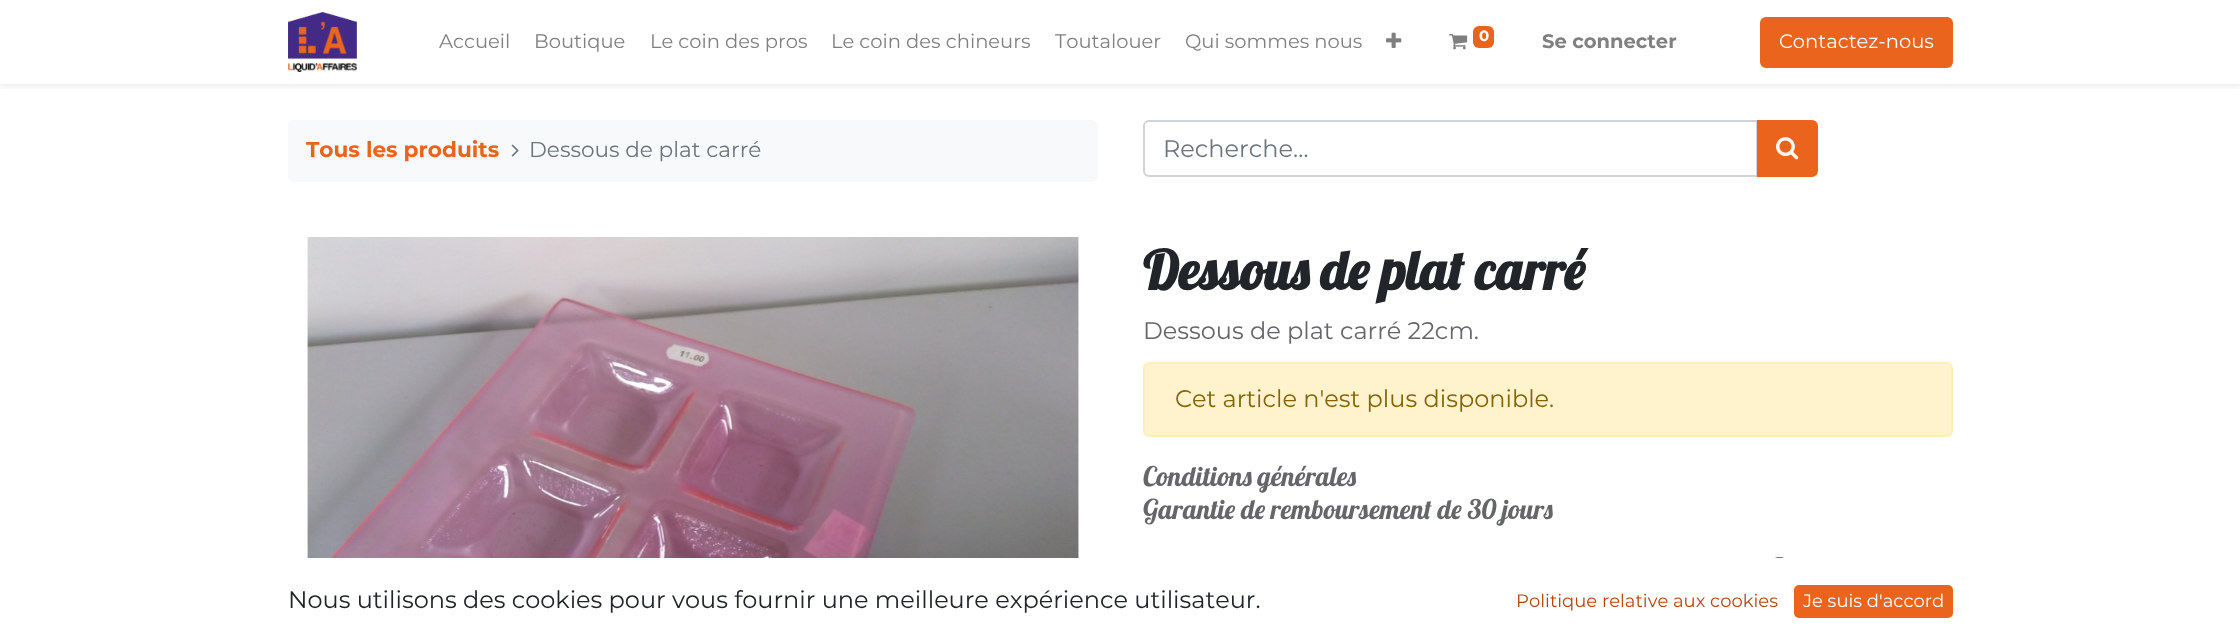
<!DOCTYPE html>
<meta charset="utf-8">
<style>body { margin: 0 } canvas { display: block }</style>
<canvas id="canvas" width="2240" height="642"></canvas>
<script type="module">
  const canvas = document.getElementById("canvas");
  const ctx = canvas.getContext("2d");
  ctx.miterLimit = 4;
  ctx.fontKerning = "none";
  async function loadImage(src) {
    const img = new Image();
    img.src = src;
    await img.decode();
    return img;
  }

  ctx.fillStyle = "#ffffff";
  ctx.fillRect(0, 0, 2240, 642);
  ctx.save();
  ctx.beginPath();
  ctx.rect(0, 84, 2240, 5);
  ctx.clip();
  ctx.fillStyle = "rgba(0, 0, 0, 0.07)";
  ctx.filter = "blur(3px)";
  ctx.beginPath();
  ctx.rect(0, 3, 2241, 84);
  ctx.fill();
  ctx.filter = "none";
  ctx.restore();
  ctx.drawImage(await loadImage("img1.png"), 288, 12, 69, 60);
  ctx.font = "19.5px Montserrat";
  ctx.fillStyle = "#808080";
  ctx.fillText("Accueil", 439, 48);
  ctx.fillText("Boutique", 534, 48);
  ctx.fillText("Le coin des pros", 650, 48);
  ctx.fillText("Le coin des chineurs", 831, 48);
  ctx.fillText("Toutalouer", 1055, 48);
  ctx.fillText("Qui sommes nous", 1185, 48);
  ctx.drawImage(await loadImage("img2.png"), 1386, 32, 16, 16);
  ctx.drawImage(await loadImage("img3.png"), 1449, 34, 19, 16);
  ctx.fillStyle = "#eb641d";
  ctx.beginPath();
  ctx.roundRect(1473, 26, 21, 22, 6);
  ctx.fill();
  ctx.font = "bold 15px Montserrat";
  ctx.fillStyle = "#ffffff";
  ctx.fillText("0", 1479, 41);
  ctx.font = "bold 19.5px Montserrat";
  ctx.fillStyle = "#808080";
  ctx.fillText("Se connecter", 1542, 48);
  ctx.fillStyle = "#eb641d";
  ctx.beginPath();
  ctx.roundRect(1761, 18, 191, 49, 5);
  ctx.fill();
  ctx.strokeStyle = "#eb641d";
  ctx.lineWidth = 2;
  ctx.stroke();
  ctx.font = "19.5px Montserrat";
  ctx.fillStyle = "#ffffff";
  ctx.fillText("Contactez-nous", 1779, 48);
  ctx.fillStyle = "#f8f9fa";
  ctx.beginPath();
  ctx.roundRect(288, 120, 810, 62, 6);
  ctx.fill();
  ctx.font = "bold 21.6px Montserrat";
  ctx.fillStyle = "#eb641d";
  ctx.fillText("Tous les produits", 306, 157);
  ctx.drawImage(await loadImage("img4.png"), 511, 144, 8, 13);
  ctx.font = "21.6px Montserrat";
  ctx.fillStyle = "#6c757d";
  ctx.fillText("Dessous de plat carré", 529, 157);
  ctx.beginPath();
  ctx.roundRect(1144, 121, 613, 55, [5, 0, 0, 5]);
  ctx.strokeStyle = "#ced4da";
  ctx.stroke();
  ctx.font = "24px Montserrat";
  ctx.fillText("Recherche…", 1163, 157);
  ctx.fillStyle = "#eb641d";
  ctx.beginPath();
  ctx.roundRect(1758, 121, 59, 55, [0, 5, 5, 0]);
  ctx.fill();
  ctx.strokeStyle = "#eb641d";
  ctx.stroke();
  ctx.drawImage(await loadImage("img5.png"), 1776, 137, 23, 23);
  ctx.drawImage(await loadImage("img6.png"), 307, 237, 772, 321);
  ctx.font = "bold 54px Lobster";
  ctx.fillStyle = "#212529";
  ctx.fillText("Dessous de plat carré", 1143, 290);
  ctx.font = "24px Montserrat";
  ctx.fillStyle = "#646669";
  ctx.fillText("Dessous de plat carré 22cm.", 1143, 339);
  ctx.fillStyle = "#fff3cd";
  ctx.beginPath();
  ctx.roundRect(1144, 363, 808, 73, 5);
  ctx.fill();
  ctx.strokeStyle = "#ffeeba";
  ctx.stroke();
  ctx.fillStyle = "#856404";
  ctx.fillText("Cet article n'est plus disponible.", 1175, 407);
  ctx.font = "27px Lobster";
  ctx.fillStyle = "#646669";
  ctx.fillText("Conditions générales", 1143, 486);
  ctx.fillText("Garantie de remboursement de 30 jours", 1143, 519);
  ctx.drawImage(await loadImage("img7.png"), 1775, 557, 9, 1);
  ctx.font = "24px Montserrat";
  ctx.fillStyle = "#212529";
  ctx.fillText("Nous utilisons des cookies pour vous fournir une meilleure expérience utilisateur.", 288, 608);
  ctx.font = "18px Montserrat";
  ctx.fillStyle = "#b14710";
  ctx.fillText("Politique relative aux cookies", 1516, 607);
  ctx.fillStyle = "#eb641d";
  ctx.beginPath();
  ctx.roundRect(1795, 586, 157, 31, 4);
  ctx.fill();
  ctx.strokeStyle = "#eb641d";
  ctx.stroke();
  ctx.fillStyle = "#ffffff";
  ctx.fillText("Je suis d'accord", 1803, 607);
</script>
